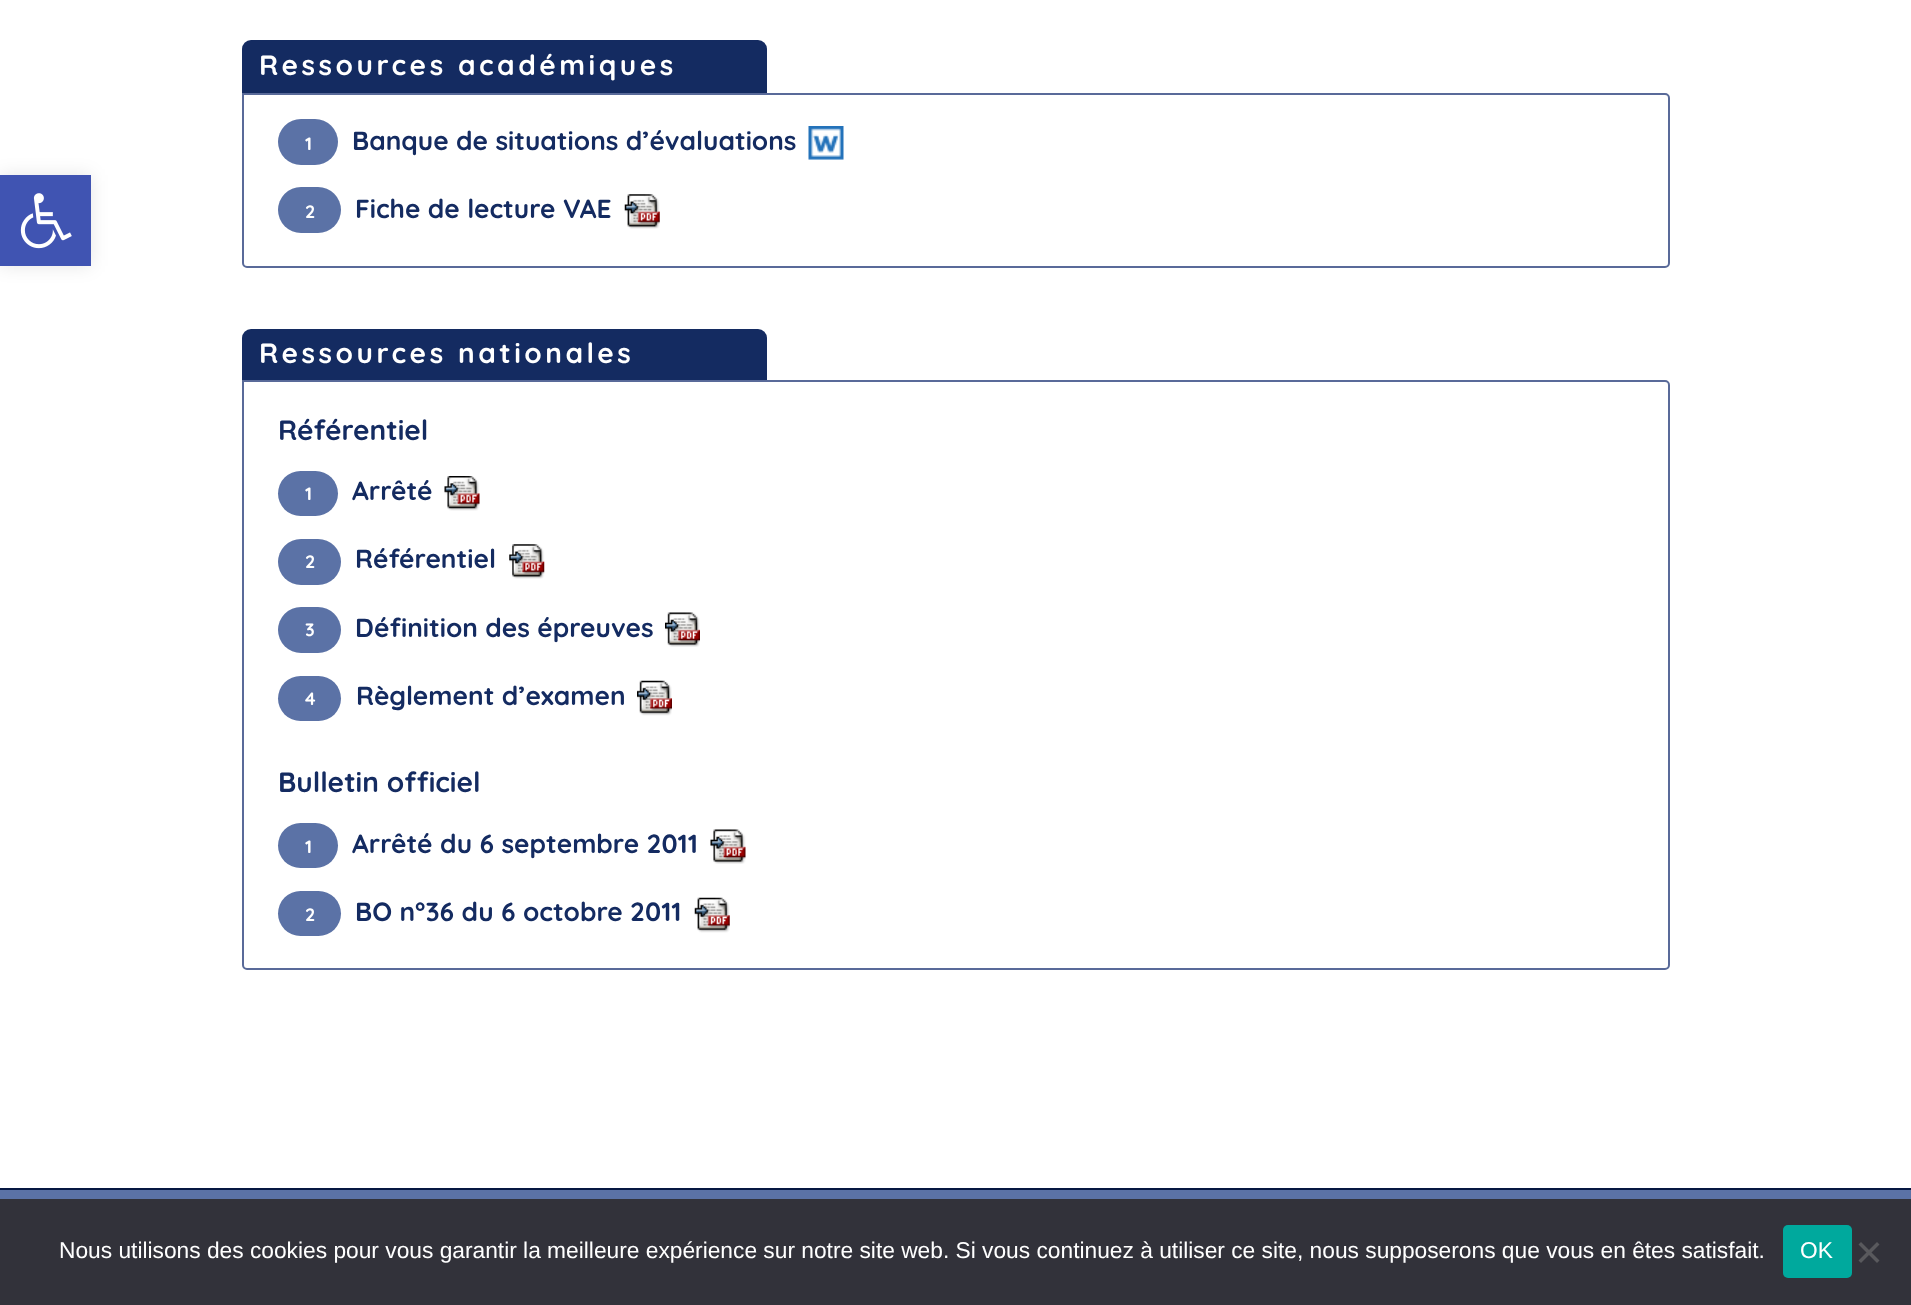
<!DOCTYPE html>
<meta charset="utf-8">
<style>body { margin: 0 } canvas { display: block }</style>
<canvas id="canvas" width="1911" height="1305"></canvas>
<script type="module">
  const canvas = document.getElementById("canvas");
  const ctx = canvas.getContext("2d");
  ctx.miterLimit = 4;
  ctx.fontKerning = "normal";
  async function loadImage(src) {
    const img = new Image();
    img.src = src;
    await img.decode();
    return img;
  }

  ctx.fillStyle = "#ffffff";
  ctx.fillRect(0, 0, 1911, 1305);
  ctx.fillStyle = "rgba(0, 0, 0, 0.1)";
  ctx.filter = "blur(9px)";
  ctx.beginPath();
  ctx.rect(0, 175, 91, 91);
  ctx.fill();
  ctx.filter = "none";
  ctx.fillStyle = "#4054b2";
  ctx.fillRect(0, 175, 91, 91);
  ctx.drawImage(await loadImage("img1.png"), 20, 193, 52, 56);
  ctx.fillStyle = "#142b61";
  ctx.beginPath();
  ctx.roundRect(242, 40, 525, 53, [9, 9, 0, 0]);
  ctx.fill();
  ctx.letterSpacing = "3.5px";
  ctx.font = "bold 28px Quicksand";
  ctx.fillStyle = "#ffffff";
  ctx.fillText("Ressources académiques", 259, 75);
  ctx.beginPath();
  ctx.roundRect(243, 94, 1426, 173, [0, 4, 4, 4]);
  ctx.strokeStyle = "#596a99";
  ctx.lineWidth = 2;
  ctx.stroke();
  ctx.fillStyle = "#5b72a6";
  ctx.beginPath();
  ctx.roundRect(278, 119, 60, 46, 23);
  ctx.fill();
  ctx.letterSpacing = "0px";
  ctx.font = "bold 18px Quicksand";
  ctx.fillStyle = "#ffffff";
  ctx.fillText("1", 305, 150);
  ctx.font = "bold 26.25px Quicksand";
  ctx.fillStyle = "#142b61";
  ctx.fillText("Banque de situations d’évaluations", 352, 150);
  ctx.drawImage(await loadImage("img2.png"), 808, 126, 36, 34);
  ctx.fillStyle = "#5b72a6";
  ctx.beginPath();
  ctx.roundRect(278, 187, 63, 46, 23);
  ctx.fill();
  ctx.font = "bold 18px Quicksand";
  ctx.fillStyle = "#ffffff";
  ctx.fillText("2", 305, 218);
  ctx.font = "bold 26.25px Quicksand";
  ctx.fillStyle = "#142b61";
  ctx.fillText("Fiche de lecture VAE", 355, 218);
  ctx.drawImage(await loadImage("img3.png"), 624, 194, 36, 35);
  ctx.beginPath();
  ctx.roundRect(242, 329, 525, 51, [9, 9, 0, 0]);
  ctx.fill();
  ctx.letterSpacing = "3.5px";
  ctx.font = "bold 28px Quicksand";
  ctx.fillStyle = "#ffffff";
  ctx.fillText("Ressources nationales", 259, 363);
  ctx.beginPath();
  ctx.roundRect(243, 381, 1426, 588, [0, 4, 4, 4]);
  ctx.stroke();
  ctx.letterSpacing = "0px";
  ctx.fillStyle = "#142b61";
  ctx.fillText("Référentiel", 278, 440);
  ctx.fillStyle = "#5b72a6";
  ctx.beginPath();
  ctx.roundRect(278, 471, 60, 45, 22.5);
  ctx.fill();
  ctx.font = "bold 18px Quicksand";
  ctx.fillStyle = "#ffffff";
  ctx.fillText("1", 305, 500);
  ctx.font = "bold 26.25px Quicksand";
  ctx.fillStyle = "#142b61";
  ctx.fillText("Arrêté", 352, 500);
  ctx.drawImage(await loadImage("img4.png"), 444, 476, 36, 35);
  ctx.fillStyle = "#5b72a6";
  ctx.beginPath();
  ctx.roundRect(278, 539, 63, 46, 23);
  ctx.fill();
  ctx.font = "bold 18px Quicksand";
  ctx.fillStyle = "#ffffff";
  ctx.fillText("2", 305, 568);
  ctx.font = "bold 26.25px Quicksand";
  ctx.fillStyle = "#142b61";
  ctx.fillText("Référentiel", 355, 568);
  ctx.drawImage(await loadImage("img5.png"), 509, 544, 36, 35);
  ctx.fillStyle = "#5b72a6";
  ctx.beginPath();
  ctx.roundRect(278, 607, 63, 46, 23);
  ctx.fill();
  ctx.font = "bold 18px Quicksand";
  ctx.fillStyle = "#ffffff";
  ctx.fillText("3", 305, 636);
  ctx.font = "bold 26.25px Quicksand";
  ctx.fillStyle = "#142b61";
  ctx.fillText("Définition des épreuves", 355, 637);
  ctx.drawImage(await loadImage("img6.png"), 665, 612, 35, 35);
  ctx.fillStyle = "#5b72a6";
  ctx.beginPath();
  ctx.roundRect(278, 676, 63, 45, 22.5);
  ctx.fill();
  ctx.font = "bold 18px Quicksand";
  ctx.fillStyle = "#ffffff";
  ctx.fillText("4", 305, 705);
  ctx.font = "bold 26.25px Quicksand";
  ctx.fillStyle = "#142b61";
  ctx.fillText("Règlement d’examen", 356, 705);
  ctx.drawImage(await loadImage("img7.png"), 637, 680, 35, 36);
  ctx.font = "bold 28px Quicksand";
  ctx.fillText("Bulletin officiel", 278, 792);
  ctx.fillStyle = "#5b72a6";
  ctx.beginPath();
  ctx.roundRect(278, 823, 60, 45, 22.5);
  ctx.fill();
  ctx.font = "bold 18px Quicksand";
  ctx.fillStyle = "#ffffff";
  ctx.fillText("1", 305, 853);
  ctx.font = "bold 26.25px Quicksand";
  ctx.fillStyle = "#142b61";
  ctx.fillText("Arrêté du 6 septembre 2011", 352, 853);
  ctx.drawImage(await loadImage("img8.png"), 710, 829, 36, 35);
  ctx.fillStyle = "#5b72a6";
  ctx.beginPath();
  ctx.roundRect(278, 891, 63, 45, 22.5);
  ctx.fill();
  ctx.font = "bold 18px Quicksand";
  ctx.fillStyle = "#ffffff";
  ctx.fillText("2", 305, 921);
  ctx.font = "bold 26.25px Quicksand";
  ctx.fillStyle = "#142b61";
  ctx.fillText("BO n°36 du 6 octobre 2011", 355, 921);
  ctx.drawImage(await loadImage("img9.png"), 694, 897, 36, 36);
  ctx.fillStyle = "#5b72a6";
  ctx.fillRect(0, 1190, 1911, 9);
  ctx.fillStyle = "#061842";
  ctx.fillRect(0, 1188, 1911, 2);
  ctx.fillStyle = "#32323a";
  ctx.fillRect(0, 1199, 1911, 106);
  ctx.font = "22.75px Liberation Sans";
  ctx.fillStyle = "#ffffff";
  ctx.fillText("Nous utilisons des cookies pour vous garantir la meilleure expérience sur notre site web. Si vous continuez à utiliser ce site, nous supposerons que vous en êtes satisfait.", 59, 1258);
  ctx.fillStyle = "#00a99d";
  ctx.beginPath();
  ctx.roundRect(1783, 1225, 69, 53, 5);
  ctx.fill();
  ctx.fillStyle = "#ffffff";
  ctx.fillText("OK", 1800, 1258);
  ctx.fillStyle = "#59595d";
  ctx.beginPath();
  ctx.moveTo(1877, 1242);
  ctx.lineTo(1879.5, 1244.5);
  ctx.lineTo(1861, 1263);
  ctx.lineTo(1858.5, 1260.5);
  ctx.closePath();
  ctx.fill();
  ctx.beginPath();
  ctx.moveTo(1858.5, 1244.5);
  ctx.lineTo(1861, 1242);
  ctx.lineTo(1879.5, 1260.5);
  ctx.lineTo(1877, 1263);
  ctx.closePath();
  ctx.fill();
</script>
